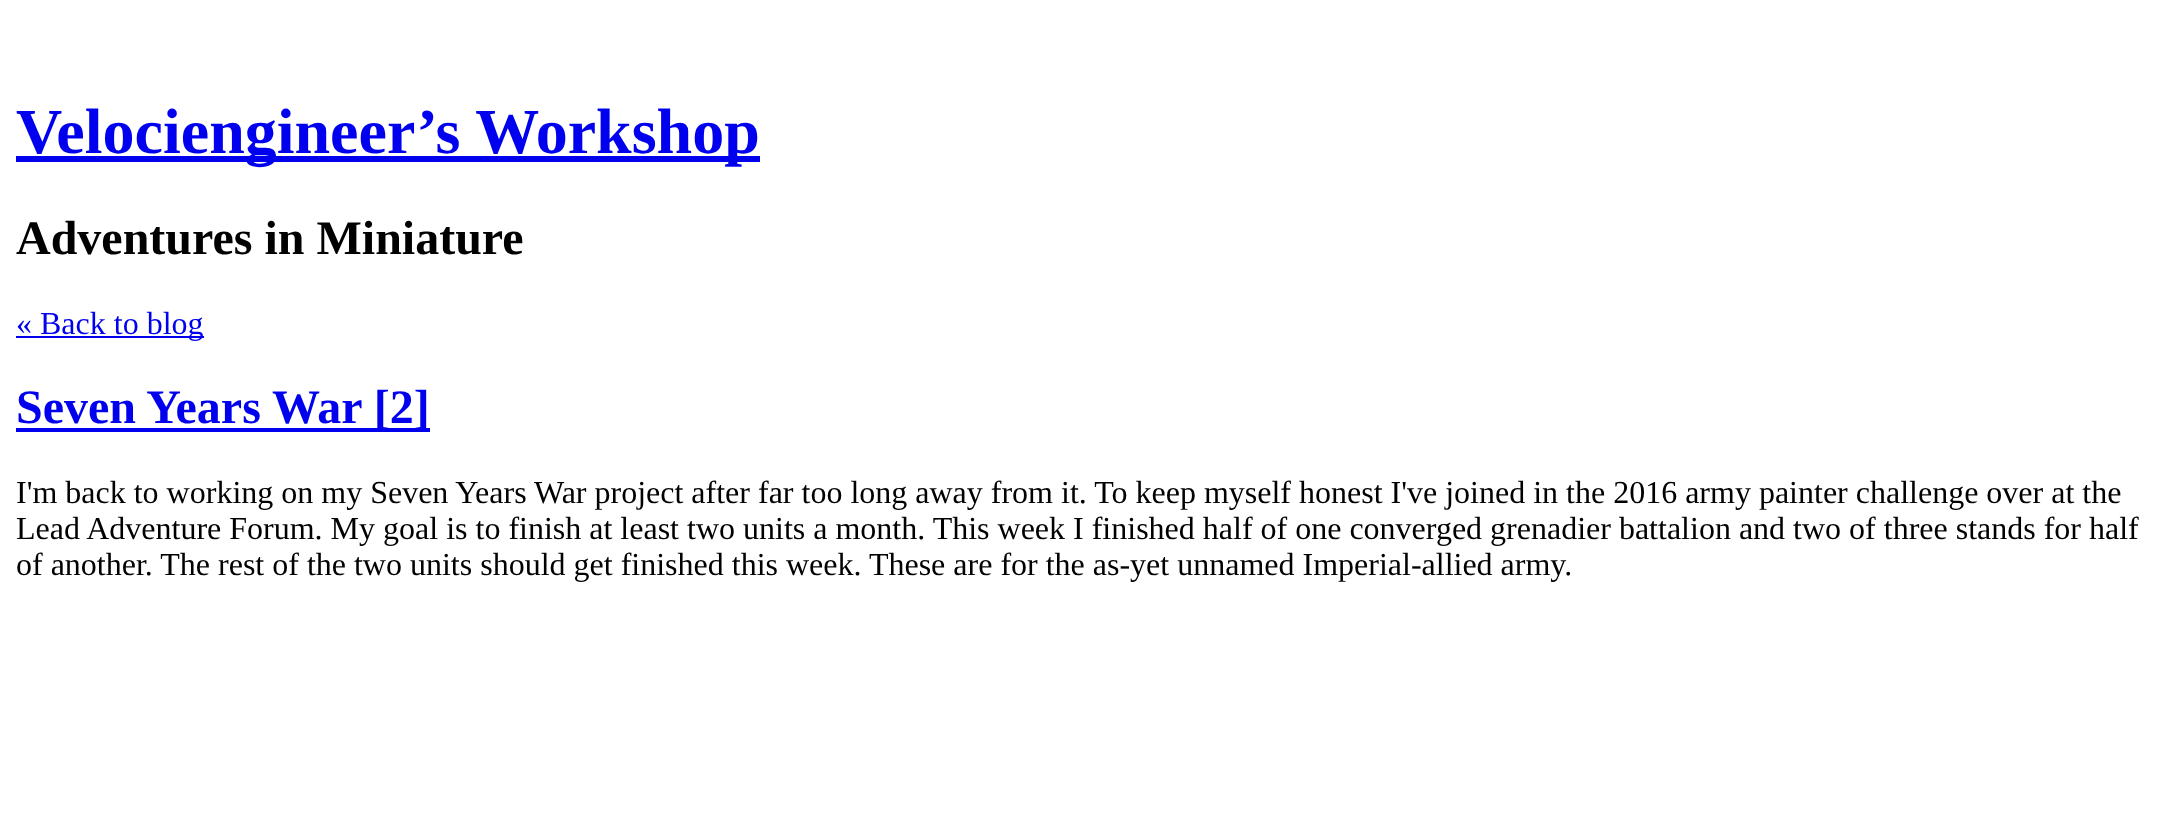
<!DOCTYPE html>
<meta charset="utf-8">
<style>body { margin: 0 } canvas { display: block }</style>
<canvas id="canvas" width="2160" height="816"></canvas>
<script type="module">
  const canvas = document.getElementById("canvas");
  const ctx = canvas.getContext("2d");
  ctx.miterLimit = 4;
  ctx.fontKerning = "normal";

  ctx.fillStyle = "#ffffff";
  ctx.fillRect(0, 0, 2160, 816);
  ctx.fillStyle = "#0000ee";
  ctx.fillRect(16, 156, 744, 6);
  ctx.font = "bold 64px Liberation Serif";
  ctx.fillText("Velociengineer’s Workshop", 16, 153);
  ctx.font = "bold 48px Liberation Serif";
  ctx.fillStyle = "#000000";
  ctx.fillText("Adventures in Miniature", 16, 254);
  ctx.fillStyle = "#0000ee";
  ctx.fillRect(16, 336, 188, 2);
  ctx.font = "32px Liberation Serif";
  ctx.fillText("« Back to blog", 16, 334);
  ctx.fillRect(16, 428, 414, 4);
  ctx.font = "bold 48px Liberation Serif";
  ctx.fillText("Seven Years War [2]", 16, 423);
  ctx.font = "32px Liberation Serif";
  ctx.fillStyle = "#000000";
  ctx.fillText("I'm back to working on my Seven Years War project after far too long away from it. To keep myself honest I've joined in the 2016 army painter challenge over at the", 16, 503);
  ctx.fillText("Lead Adventure Forum. My goal is to finish at least two units a month. This week I finished half of one converged grenadier battalion and two of three stands for half", 16, 539);
  ctx.fillText("of another. The rest of the two units should get finished this week. These are for the as-yet unnamed Imperial-allied army.", 16, 575);
</script>
